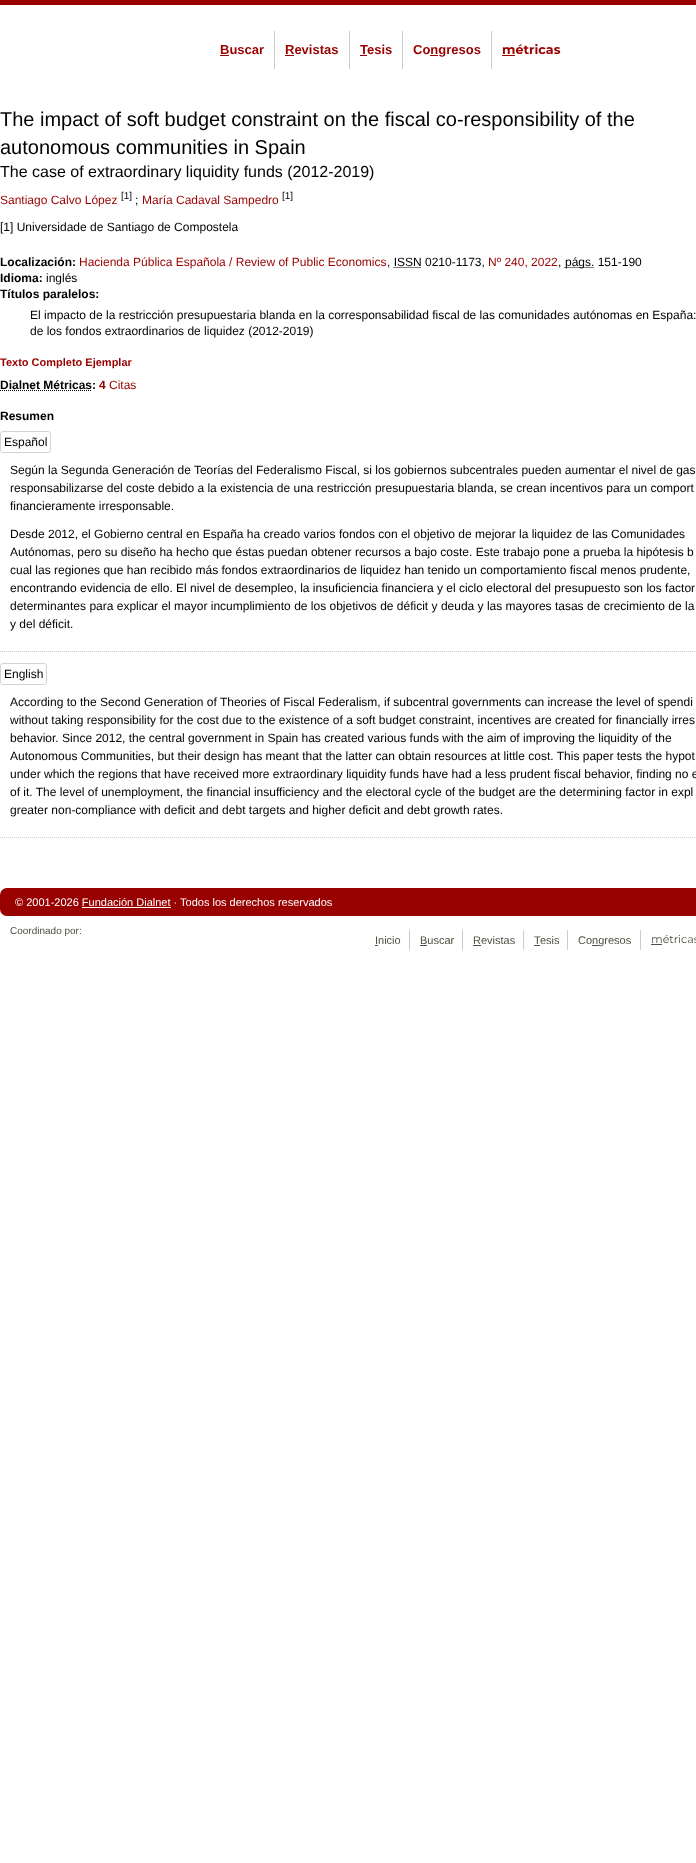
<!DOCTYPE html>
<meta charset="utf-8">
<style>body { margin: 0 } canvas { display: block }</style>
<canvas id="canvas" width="696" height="1863"></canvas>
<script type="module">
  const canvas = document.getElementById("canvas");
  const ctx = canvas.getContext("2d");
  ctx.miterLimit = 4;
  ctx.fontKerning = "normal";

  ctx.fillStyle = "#ffffff";
  ctx.fillRect(0, 0, 696, 1863);
  ctx.fillStyle = "#990000";
  ctx.fillRect(0, 0, 696, 5);
  ctx.fillStyle = "#cccccc";
  ctx.fillRect(274, 31, 1, 38);
  ctx.font = "bold 13px Liberation Sans";
  ctx.fillStyle = "#990000";
  ctx.fillText("Buscar", 220, 54);
  ctx.fillRect(220, 55, 9, 1);
  ctx.fillStyle = "#cccccc";
  ctx.fillRect(349, 31, 1, 38);
  ctx.fillStyle = "#990000";
  ctx.fillText("Revistas", 285, 54);
  ctx.fillRect(285, 55, 9, 1);
  ctx.fillStyle = "#cccccc";
  ctx.fillRect(402, 31, 1, 38);
  ctx.fillStyle = "#990000";
  ctx.fillText("T", 360, 54);
  ctx.fillRect(360, 55, 7, 1);
  ctx.fillText("esis", 367, 54);
  ctx.fillStyle = "#cccccc";
  ctx.fillRect(491, 31, 1, 38);
  ctx.fillStyle = "#990000";
  ctx.fillText("Congresos", 413, 54);
  ctx.fillRect(430, 55, 8, 1);
  ctx.font = "bold 12.75px Montserrat";
  ctx.fillText("métricas", 502, 54);
  ctx.fillRect(502, 55, 13, 1);
  ctx.font = "20px Liberation Sans";
  ctx.fillStyle = "#000000";
  ctx.fillText("The impact of soft budget constraint on the fiscal co-responsibility of the", 0, 126);
  ctx.fillText("autonomous communities in Spain", 0, 154);
  ctx.font = "16px Liberation Sans";
  ctx.fillText("The case of extraordinary liquidity funds (2012-2019)", 0, 177);
  ctx.font = "12px Liberation Sans";
  ctx.fillStyle = "#990000";
  ctx.fillText("Santiago Calvo López", 0, 204);
  ctx.font = "10px Liberation Sans";
  ctx.fillStyle = "#000000";
  ctx.fillText("[1]", 121, 199);
  ctx.font = "12px Liberation Sans";
  ctx.fillText(";", 135, 204);
  ctx.fillStyle = "#990000";
  ctx.fillText("María Cadaval Sampedro", 142, 204);
  ctx.font = "10px Liberation Sans";
  ctx.fillStyle = "#000000";
  ctx.fillText("[1]", 282, 199);
  ctx.font = "12px Liberation Sans";
  ctx.fillText("[1] Universidade de Santiago de Compostela", 0, 231);
  ctx.font = "bold 12px Liberation Sans";
  ctx.fillText("Localización:", 0, 266);
  ctx.font = "12px Liberation Sans";
  ctx.fillStyle = "#990000";
  ctx.fillText("Hacienda Pública Española / Review of Public Economics", 79, 266);
  ctx.fillStyle = "#000000";
  ctx.fillText(", ISSN 0210-1173,", 387, 266);
  ctx.beginPath();
  ctx.moveTo(393.5, 267.5);
  ctx.lineTo(421.5, 267.5);
  ctx.strokeStyle = "#000000";
  ctx.setLineDash([1, 1]);
  ctx.stroke();
  ctx.fillStyle = "#990000";
  ctx.fillText("Nº 240, 2022", 488, 266);
  ctx.fillStyle = "#000000";
  ctx.fillText(",", 558, 266);
  ctx.beginPath();
  ctx.moveTo(564.5, 267.5);
  ctx.lineTo(594, 267.5);
  ctx.stroke();
  ctx.fillText("págs. 151-190", 565, 266);
  ctx.font = "bold 12px Liberation Sans";
  ctx.fillText("Idioma:", 0, 282);
  ctx.font = "12px Liberation Sans";
  ctx.fillText("inglés", 46, 282);
  ctx.font = "bold 12px Liberation Sans";
  ctx.fillText("Títulos paralelos:", 0, 298);
  ctx.font = "12px Liberation Sans";
  ctx.fillText("El impacto de la restricción presupuestaria blanda en la corresponsabilidad fiscal de las comunidades autónomas en España:", 30, 319);
  ctx.fillText("de los fondos extraordinarios de liquidez (2012-2019)", 30, 335);
  ctx.font = "bold 11px Liberation Sans";
  ctx.fillStyle = "#990000";
  ctx.fillText("Texto Completo Ejemplar", 0, 366);
  ctx.font = "bold 12px Liberation Sans";
  ctx.fillStyle = "#000000";
  ctx.fillText("Dialnet Métricas:", 0, 389);
  ctx.beginPath();
  ctx.moveTo(0, 390.5);
  ctx.lineTo(92, 390.5);
  ctx.stroke();
  ctx.fillStyle = "#990000";
  ctx.fillText("4", 99, 389);
  ctx.font = "12px Liberation Sans";
  ctx.fillText("Citas", 109, 389);
  ctx.font = "bold 12px Liberation Sans";
  ctx.fillStyle = "#000000";
  ctx.fillText("Resumen", 0, 420);
  ctx.beginPath();
  ctx.moveTo(0, 651.5);
  ctx.lineTo(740, 651.5);
  ctx.strokeStyle = "#cccccc";
  ctx.stroke();
  ctx.beginPath();
  ctx.roundRect(0.5, 431.5, 50, 21, 2.5);
  ctx.strokeStyle = "#d3d3d3";
  ctx.setLineDash([]);
  ctx.stroke();
  ctx.font = "12px Liberation Sans";
  ctx.fillText("Español", 4, 446);
  ctx.fillText("Según la Segunda Generación de Teorías del Federalismo Fiscal, si los gobiernos subcentrales pueden aumentar el nivel de gas", 10, 474);
  ctx.fillText("responsabilizarse del coste debido a la existencia de una restricción presupuestaria blanda, se crean incentivos para un comport", 10, 492);
  ctx.fillText("financieramente irresponsable.", 10, 510);
  ctx.fillText("Desde 2012, el Gobierno central en España ha creado varios fondos con el objetivo de mejorar la liquidez de las Comunidades", 10, 538);
  ctx.fillText("Autónomas, pero su diseño ha hecho que éstas puedan obtener recursos a bajo coste. Este trabajo pone a prueba la hipótesis b", 10, 556);
  ctx.fillText("cual las regiones que han recibido más fondos extraordinarios de liquidez han tenido un comportamiento fiscal menos prudente,", 10, 574);
  ctx.fillText("encontrando evidencia de ello. El nivel de desempleo, la insuficiencia financiera y el ciclo electoral del presupuesto son los factor", 10, 592);
  ctx.fillText("determinantes para explicar el mayor incumplimiento de los objetivos de déficit y deuda y las mayores tasas de crecimiento de la", 10, 610);
  ctx.fillText("y del déficit.", 10, 628);
  ctx.beginPath();
  ctx.moveTo(0, 837.5);
  ctx.lineTo(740, 837.5);
  ctx.strokeStyle = "#cccccc";
  ctx.setLineDash([1, 1]);
  ctx.stroke();
  ctx.beginPath();
  ctx.roundRect(0.5, 663.5, 46, 21, 2.5);
  ctx.strokeStyle = "#d3d3d3";
  ctx.setLineDash([]);
  ctx.stroke();
  ctx.fillText("English", 4, 678);
  ctx.fillText("According to the Second Generation of Theories of Fiscal Federalism, if subcentral governments can increase the level of spendi", 10, 706);
  ctx.fillText("without taking responsibility for the cost due to the existence of a soft budget constraint, incentives are created for financially irres", 10, 724);
  ctx.fillText("behavior. Since 2012, the central government in Spain has created various funds with the aim of improving the liquidity of the", 10, 742);
  ctx.fillText("Autonomous Communities, but their design has meant that the latter can obtain resources at little cost. This paper tests the hypot", 10, 760);
  ctx.fillText("under which the regions that have received more extraordinary liquidity funds have had a less prudent fiscal behavior, finding no e", 10, 778);
  ctx.fillText("of it. The level of unemployment, the financial insufficiency and the electoral cycle of the budget are the determining factor in expl", 10, 796);
  ctx.fillText("greater non-compliance with deficit and debt targets and higher deficit and debt growth rates.", 10, 814);
  ctx.fillStyle = "#990000";
  ctx.beginPath();
  ctx.roundRect(0, 888, 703, 28, 7);
  ctx.fill();
  ctx.font = "11px Liberation Sans";
  ctx.fillStyle = "#ffffff";
  ctx.fillText("© 2001-2026 Fundación Dialnet · Todos los derechos reservados", 15, 906);
  ctx.fillRect(82, 907, 89, 1);
  ctx.font = "10px Liberation Sans";
  ctx.fillStyle = "#504f41";
  ctx.fillText("Coordinado por:", 10, 934);
  ctx.fillStyle = "#cccccc";
  ctx.fillRect(409, 930, 1, 20);
  ctx.font = "11px Liberation Sans";
  ctx.fillStyle = "#504f41";
  ctx.fillText("Inicio", 375, 944);
  ctx.fillRect(375, 945, 3, 1);
  ctx.fillStyle = "#cccccc";
  ctx.fillRect(462, 930, 1, 20);
  ctx.fillStyle = "#504f41";
  ctx.fillText("Buscar", 420, 944);
  ctx.fillRect(420, 945, 7, 1);
  ctx.fillStyle = "#cccccc";
  ctx.fillRect(523, 930, 1, 20);
  ctx.fillStyle = "#504f41";
  ctx.fillText("Revistas", 473, 944);
  ctx.fillRect(473, 945, 8, 1);
  ctx.fillStyle = "#cccccc";
  ctx.fillRect(567, 930, 1, 20);
  ctx.fillStyle = "#504f41";
  ctx.fillText("T", 534, 944);
  ctx.fillRect(534, 945, 6, 1);
  ctx.fillText("esis", 540, 944);
  ctx.fillStyle = "#cccccc";
  ctx.fillRect(640, 930, 1, 20);
  ctx.fillStyle = "#504f41";
  ctx.fillText("Congresos", 578, 944);
  ctx.fillRect(592, 945, 7, 1);
  ctx.font = "11px Montserrat";
  ctx.fillText("métricas", 651, 943);
  ctx.fillRect(651, 944, 11, 1);
</script>
